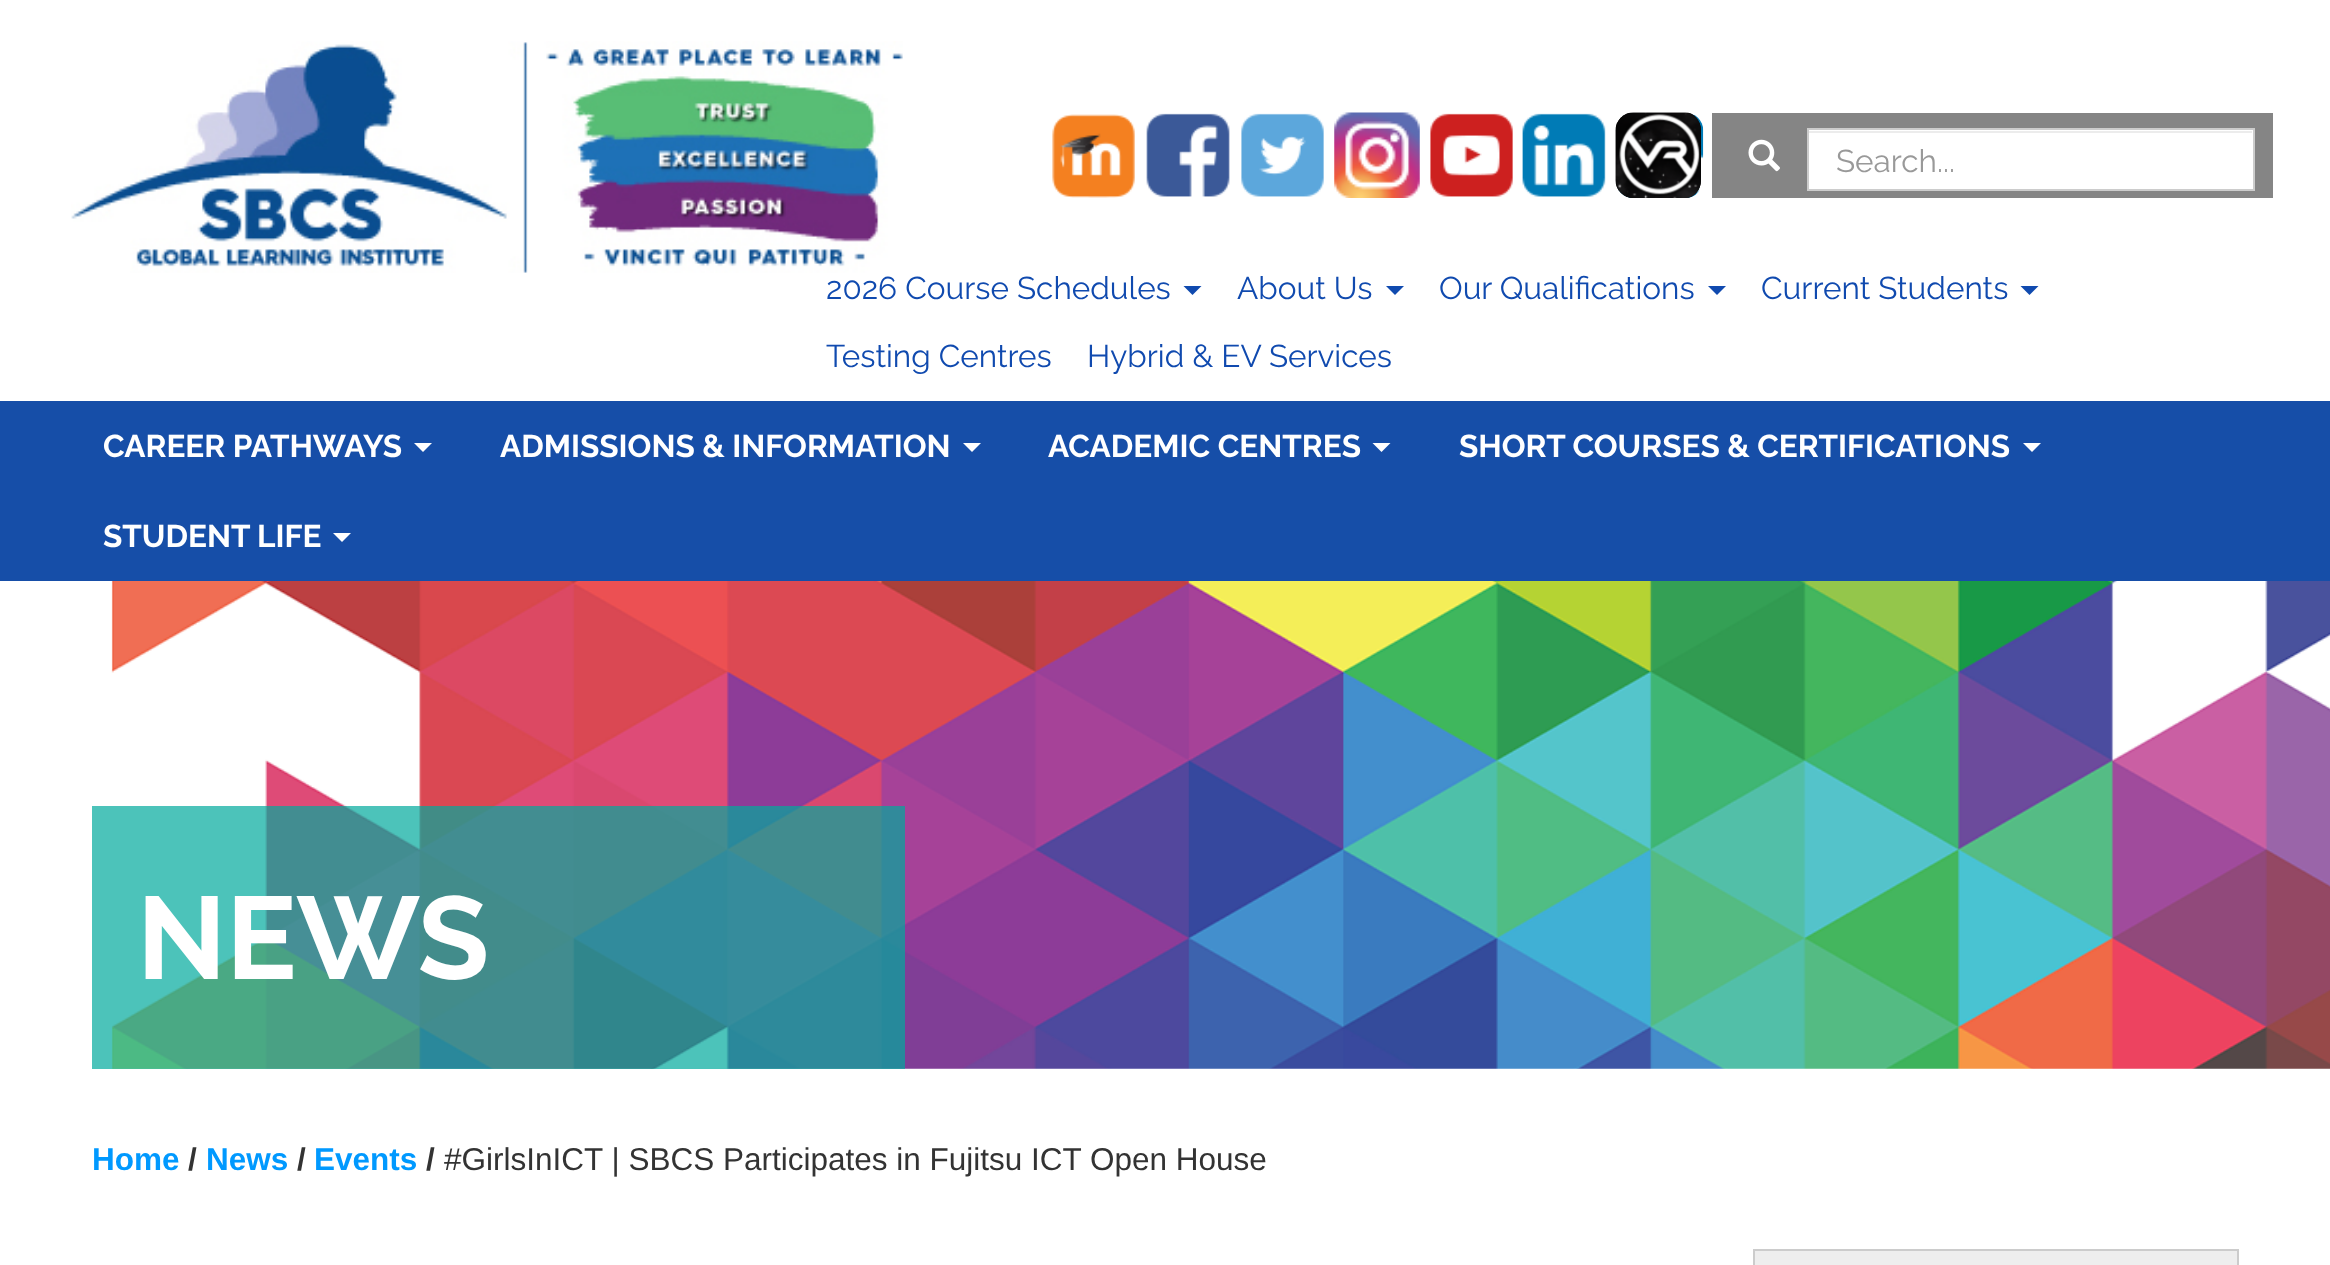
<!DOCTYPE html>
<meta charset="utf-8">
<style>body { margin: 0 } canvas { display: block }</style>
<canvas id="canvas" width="2330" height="1265"></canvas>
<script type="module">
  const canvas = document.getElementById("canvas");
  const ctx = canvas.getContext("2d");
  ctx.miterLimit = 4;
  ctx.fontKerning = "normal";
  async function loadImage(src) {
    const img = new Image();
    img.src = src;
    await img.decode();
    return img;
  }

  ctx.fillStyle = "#ffffff";
  ctx.fillRect(0, 0, 2330, 1265);
  ctx.drawImage(await loadImage("img1.png"), 71, 41, 832, 232);
  ctx.drawImage(await loadImage("img2.png"), 1052, 114, 83, 84);
  ctx.drawImage(await loadImage("img3.png"), 1146, 113, 84, 84);
  ctx.drawImage(await loadImage("img4.png"), 1241, 113, 83, 84);
  ctx.drawImage(await loadImage("img5.png"), 1334, 112, 86, 86);
  ctx.drawImage(await loadImage("img6.png"), 1430, 113, 83, 84);
  ctx.drawImage(await loadImage("img7.png"), 1522, 113, 84, 84);
  ctx.drawImage(await loadImage("img8.png"), 1615, 112, 89, 86);
  ctx.drawImage(await loadImage("img9.png"), 1615, 112, 86, 86);
  ctx.fillStyle = "#858585";
  ctx.fillRect(1712, 113, 561, 85);
  ctx.drawImage(await loadImage("img10.png"), 1748, 139, 32, 33);
  ctx.fillStyle = "#ffffff";
  ctx.fillRect(1809, 130, 444, 59);
  ctx.fillStyle = "#ececec";
  ctx.fillRect(1809, 131, 443, 2);
  ctx.strokeStyle = "#cccccc";
  ctx.lineWidth = 2;
  ctx.strokeRect(1808, 129, 446, 61);
  ctx.font = "31.5px Raleway";
  ctx.fillStyle = "#999999";
  ctx.fillText("Search...", 1836, 172);
  ctx.fillStyle = "#104aaf";
  ctx.fillText("2026 Course Schedules", 826, 299);
  ctx.beginPath();
  ctx.moveTo(1183.5, 286);
  ctx.lineTo(1201.5, 286);
  ctx.lineTo(1192.5, 295);
  ctx.closePath();
  ctx.fill();
  ctx.fillText("About Us", 1237, 299);
  ctx.beginPath();
  ctx.moveTo(1386, 286);
  ctx.lineTo(1404, 286);
  ctx.lineTo(1395, 295);
  ctx.closePath();
  ctx.fill();
  ctx.fillText("Our Qualifications", 1439, 299);
  ctx.beginPath();
  ctx.moveTo(1708, 286);
  ctx.lineTo(1726, 286);
  ctx.lineTo(1717, 295);
  ctx.closePath();
  ctx.fill();
  ctx.fillText("Current Students", 1761, 299);
  ctx.beginPath();
  ctx.moveTo(2020.5, 286);
  ctx.lineTo(2038.5, 286);
  ctx.lineTo(2029.5, 295);
  ctx.closePath();
  ctx.fill();
  ctx.fillText("Testing Centres", 826, 367);
  ctx.fillText("Hybrid & EV Services", 1087, 367);
  ctx.fillStyle = "#164ea8";
  ctx.fillRect(0, 401, 2330, 180);
  ctx.font = "bold 31.5px Raleway";
  ctx.fillStyle = "#ffffff";
  ctx.fillText("CAREER PATHWAYS", 103, 457);
  ctx.beginPath();
  ctx.moveTo(414, 443);
  ctx.lineTo(432, 443);
  ctx.lineTo(423, 452);
  ctx.closePath();
  ctx.fill();
  ctx.fillText("ADMISSIONS & INFORMATION", 500, 457);
  ctx.beginPath();
  ctx.moveTo(963, 443);
  ctx.lineTo(981, 443);
  ctx.lineTo(972, 452);
  ctx.closePath();
  ctx.fill();
  ctx.fillText("ACADEMIC CENTRES", 1048, 457);
  ctx.beginPath();
  ctx.moveTo(1372.5, 443);
  ctx.lineTo(1390.5, 443);
  ctx.lineTo(1381.5, 452);
  ctx.closePath();
  ctx.fill();
  ctx.fillText("SHORT COURSES & CERTIFICATIONS", 1459, 457);
  ctx.beginPath();
  ctx.moveTo(2023, 443);
  ctx.lineTo(2041, 443);
  ctx.lineTo(2032, 452);
  ctx.closePath();
  ctx.fill();
  ctx.fillText("STUDENT LIFE", 103, 547);
  ctx.beginPath();
  ctx.moveTo(333, 533);
  ctx.lineTo(351, 533);
  ctx.lineTo(342, 542);
  ctx.closePath();
  ctx.fill();
  ctx.drawImage(await loadImage("img11.png"), 111, 581, 2219, 488);
  ctx.fillStyle = "rgba(0, 169, 157, 0.7)";
  ctx.fillRect(92, 806, 813, 263);
  ctx.font = "bold 117px Raleway";
  ctx.fillStyle = "#ffffff";
  ctx.fillText("NEWS", 137, 979);
  ctx.font = "bold 31.5px Liberation Sans";
  ctx.fillStyle = "#0099ff";
  ctx.fillText("Home", 92, 1170);
  ctx.fillStyle = "#333333";
  ctx.fillText("/", 188, 1170);
  ctx.fillStyle = "#0099ff";
  ctx.fillText("News", 206, 1170);
  ctx.fillStyle = "#333333";
  ctx.fillText("/", 297, 1170);
  ctx.fillStyle = "#0099ff";
  ctx.fillText("Events", 314, 1170);
  ctx.fillStyle = "#333333";
  ctx.fillText("/", 426, 1170);
  ctx.font = "31.5px Liberation Sans";
  ctx.fillText("#GirlsInICT | SBCS Participates in Fujitsu ICT Open House", 444, 1170);
  ctx.fillStyle = "#eeeeee";
  ctx.beginPath();
  ctx.rect(1754, 1250, 484, 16);
  ctx.fill();
  ctx.stroke();
</script>
